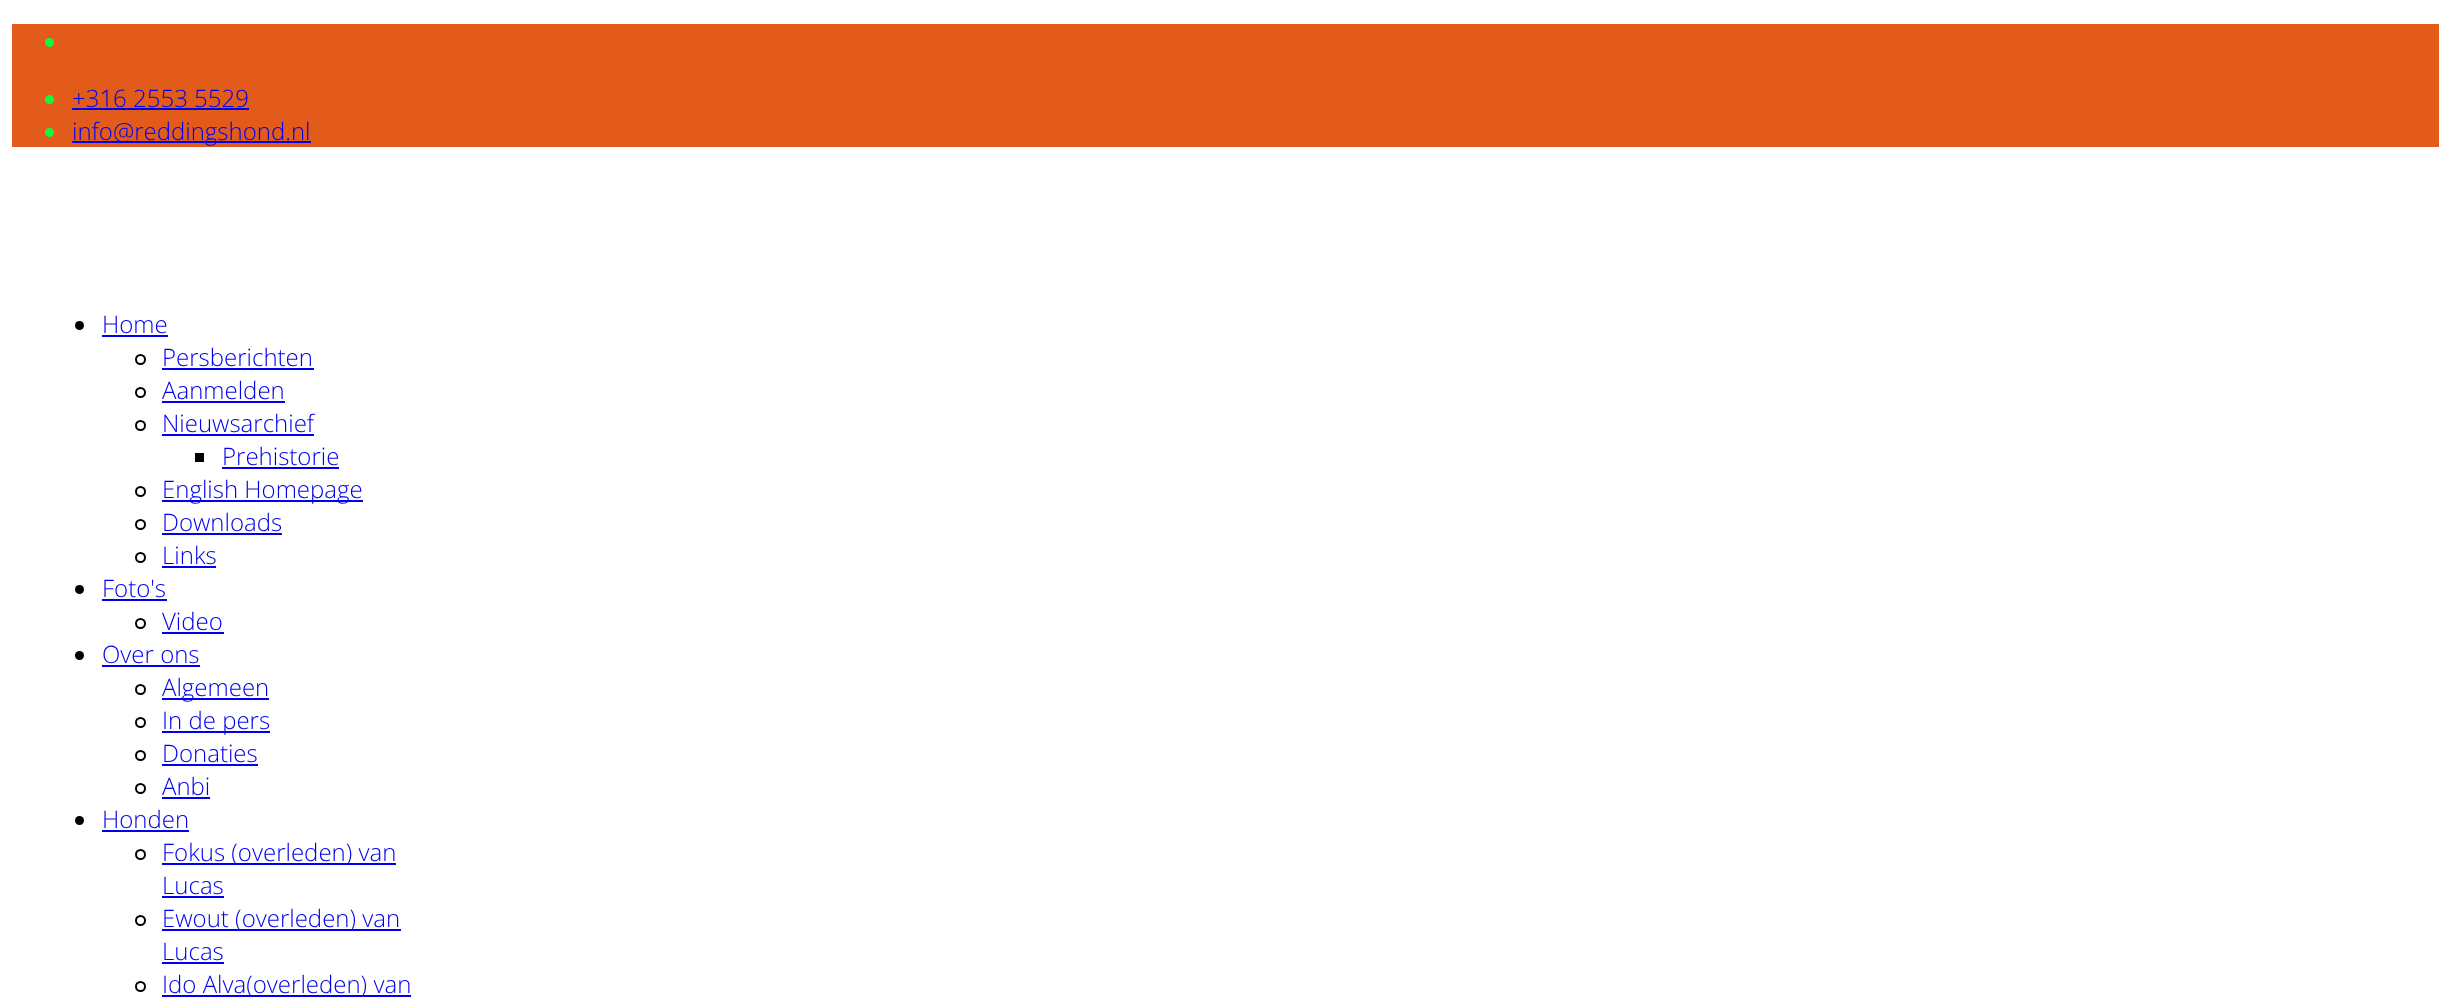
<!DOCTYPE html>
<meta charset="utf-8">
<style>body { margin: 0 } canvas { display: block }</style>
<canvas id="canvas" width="2450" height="997"></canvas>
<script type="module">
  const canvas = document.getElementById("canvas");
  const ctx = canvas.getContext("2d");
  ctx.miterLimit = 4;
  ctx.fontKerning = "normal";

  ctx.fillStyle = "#ffffff";
  ctx.fillRect(0, 0, 2450, 997);
  ctx.fillStyle = "#e25b1b";
  ctx.fillRect(12, 24, 2427, 123);
  ctx.fillStyle = "#16f543";
  ctx.beginPath();
  ctx.arc(49.5, 42.5, 4.5, 0, Math.PI * 2);
  ctx.fill();
  ctx.beginPath();
  ctx.arc(49.5, 99.5, 4.5, 0, Math.PI * 2);
  ctx.fill();
  ctx.font = "300 24px Open Sans";
  ctx.fillStyle = "#0000ee";
  ctx.fillText("+316 2553 5529", 72, 107);
  ctx.fillRect(72, 108, 177, 2);
  ctx.fillStyle = "#16f543";
  ctx.beginPath();
  ctx.arc(49.5, 132.5, 4.5, 0, Math.PI * 2);
  ctx.fill();
  ctx.fillStyle = "#0000ee";
  ctx.fillRect(72, 141, 239, 2);
  ctx.fillText("info@reddingshond.nl", 72, 140);
  ctx.fillStyle = "#000000";
  ctx.beginPath();
  ctx.arc(79.5, 325.5, 4.5, 0, Math.PI * 2);
  ctx.fill();
  ctx.fillStyle = "#0000ee";
  ctx.fillText("Home", 102, 333);
  ctx.fillRect(102, 335, 66, 2);
  ctx.beginPath();
  ctx.arc(140.5, 359.5, 4.5, 0, Math.PI * 2);
  ctx.strokeStyle = "#000000";
  ctx.lineWidth = 2;
  ctx.stroke();
  ctx.fillText("Persberichten", 162, 366);
  ctx.fillRect(162, 368, 152, 2);
  ctx.beginPath();
  ctx.arc(140.5, 392.5, 4.5, 0, Math.PI * 2);
  ctx.stroke();
  ctx.fillText("Aanmelden", 162, 399);
  ctx.fillRect(162, 401, 123, 2);
  ctx.beginPath();
  ctx.arc(140.5, 425.5, 4.5, 0, Math.PI * 2);
  ctx.stroke();
  ctx.fillText("Nieuwsarchief", 162, 432);
  ctx.fillRect(162, 434, 152, 2);
  ctx.fillStyle = "#000000";
  ctx.fillRect(195, 453, 9, 9);
  ctx.fillStyle = "#0000ee";
  ctx.fillText("Prehistorie", 222, 465);
  ctx.fillRect(222, 467, 117, 2);
  ctx.beginPath();
  ctx.arc(140.5, 491.5, 4.5, 0, Math.PI * 2);
  ctx.stroke();
  ctx.fillRect(162, 500, 201, 2);
  ctx.fillText("English Homepage", 162, 498);
  ctx.beginPath();
  ctx.arc(140.5, 524.5, 4.5, 0, Math.PI * 2);
  ctx.stroke();
  ctx.fillText("Downloads", 162, 531);
  ctx.fillRect(162, 533, 120, 2);
  ctx.beginPath();
  ctx.arc(140.5, 557.5, 4.5, 0, Math.PI * 2);
  ctx.stroke();
  ctx.fillText("Links", 162, 564);
  ctx.fillRect(162, 566, 54, 2);
  ctx.fillStyle = "#000000";
  ctx.beginPath();
  ctx.arc(79.5, 589.5, 4.5, 0, Math.PI * 2);
  ctx.fill();
  ctx.fillStyle = "#0000ee";
  ctx.fillText("Foto's", 102, 597);
  ctx.fillRect(102, 599, 65, 2);
  ctx.beginPath();
  ctx.arc(140.5, 623.5, 4.5, 0, Math.PI * 2);
  ctx.stroke();
  ctx.fillText("Video", 162, 630);
  ctx.fillRect(162, 632, 62, 2);
  ctx.fillStyle = "#000000";
  ctx.beginPath();
  ctx.arc(79.5, 655.5, 4.5, 0, Math.PI * 2);
  ctx.fill();
  ctx.fillStyle = "#0000ee";
  ctx.fillText("Over ons", 102, 663);
  ctx.fillRect(102, 665, 98, 2);
  ctx.beginPath();
  ctx.arc(140.5, 689.5, 4.5, 0, Math.PI * 2);
  ctx.stroke();
  ctx.fillRect(162, 698, 107, 2);
  ctx.fillText("Algemeen", 162, 696);
  ctx.beginPath();
  ctx.arc(140.5, 722.5, 4.5, 0, Math.PI * 2);
  ctx.stroke();
  ctx.fillRect(162, 731, 108, 2);
  ctx.fillText("In de pers", 162, 729);
  ctx.beginPath();
  ctx.arc(140.5, 755.5, 4.5, 0, Math.PI * 2);
  ctx.stroke();
  ctx.fillText("Donaties", 162, 762);
  ctx.fillRect(162, 764, 96, 2);
  ctx.beginPath();
  ctx.arc(140.5, 788.5, 4.5, 0, Math.PI * 2);
  ctx.stroke();
  ctx.fillText("Anbi", 162, 795);
  ctx.fillRect(162, 797, 48, 2);
  ctx.fillStyle = "#000000";
  ctx.beginPath();
  ctx.arc(79.5, 820.5, 4.5, 0, Math.PI * 2);
  ctx.fill();
  ctx.fillStyle = "#0000ee";
  ctx.fillText("Honden", 102, 828);
  ctx.fillRect(102, 830, 87, 2);
  ctx.beginPath();
  ctx.arc(140.5, 854.5, 4.5, 0, Math.PI * 2);
  ctx.stroke();
  ctx.fillRect(162, 863, 234, 2);
  ctx.fillText("Fokus (overleden) van", 162, 861);
  ctx.fillText("Lucas", 162, 894);
  ctx.fillRect(162, 896, 62, 2);
  ctx.beginPath();
  ctx.arc(140.5, 920.5, 4.5, 0, Math.PI * 2);
  ctx.stroke();
  ctx.fillRect(162, 929, 239, 2);
  ctx.fillText("Ewout (overleden) van", 162, 927);
  ctx.fillText("Lucas", 162, 960);
  ctx.fillRect(162, 962, 62, 2);
  ctx.beginPath();
  ctx.arc(140.5, 986.5, 4.5, 0, Math.PI * 2);
  ctx.stroke();
  ctx.fillRect(162, 995, 249, 2);
  ctx.fillText("Ido Alva(overleden) van", 162, 993);
</script>
